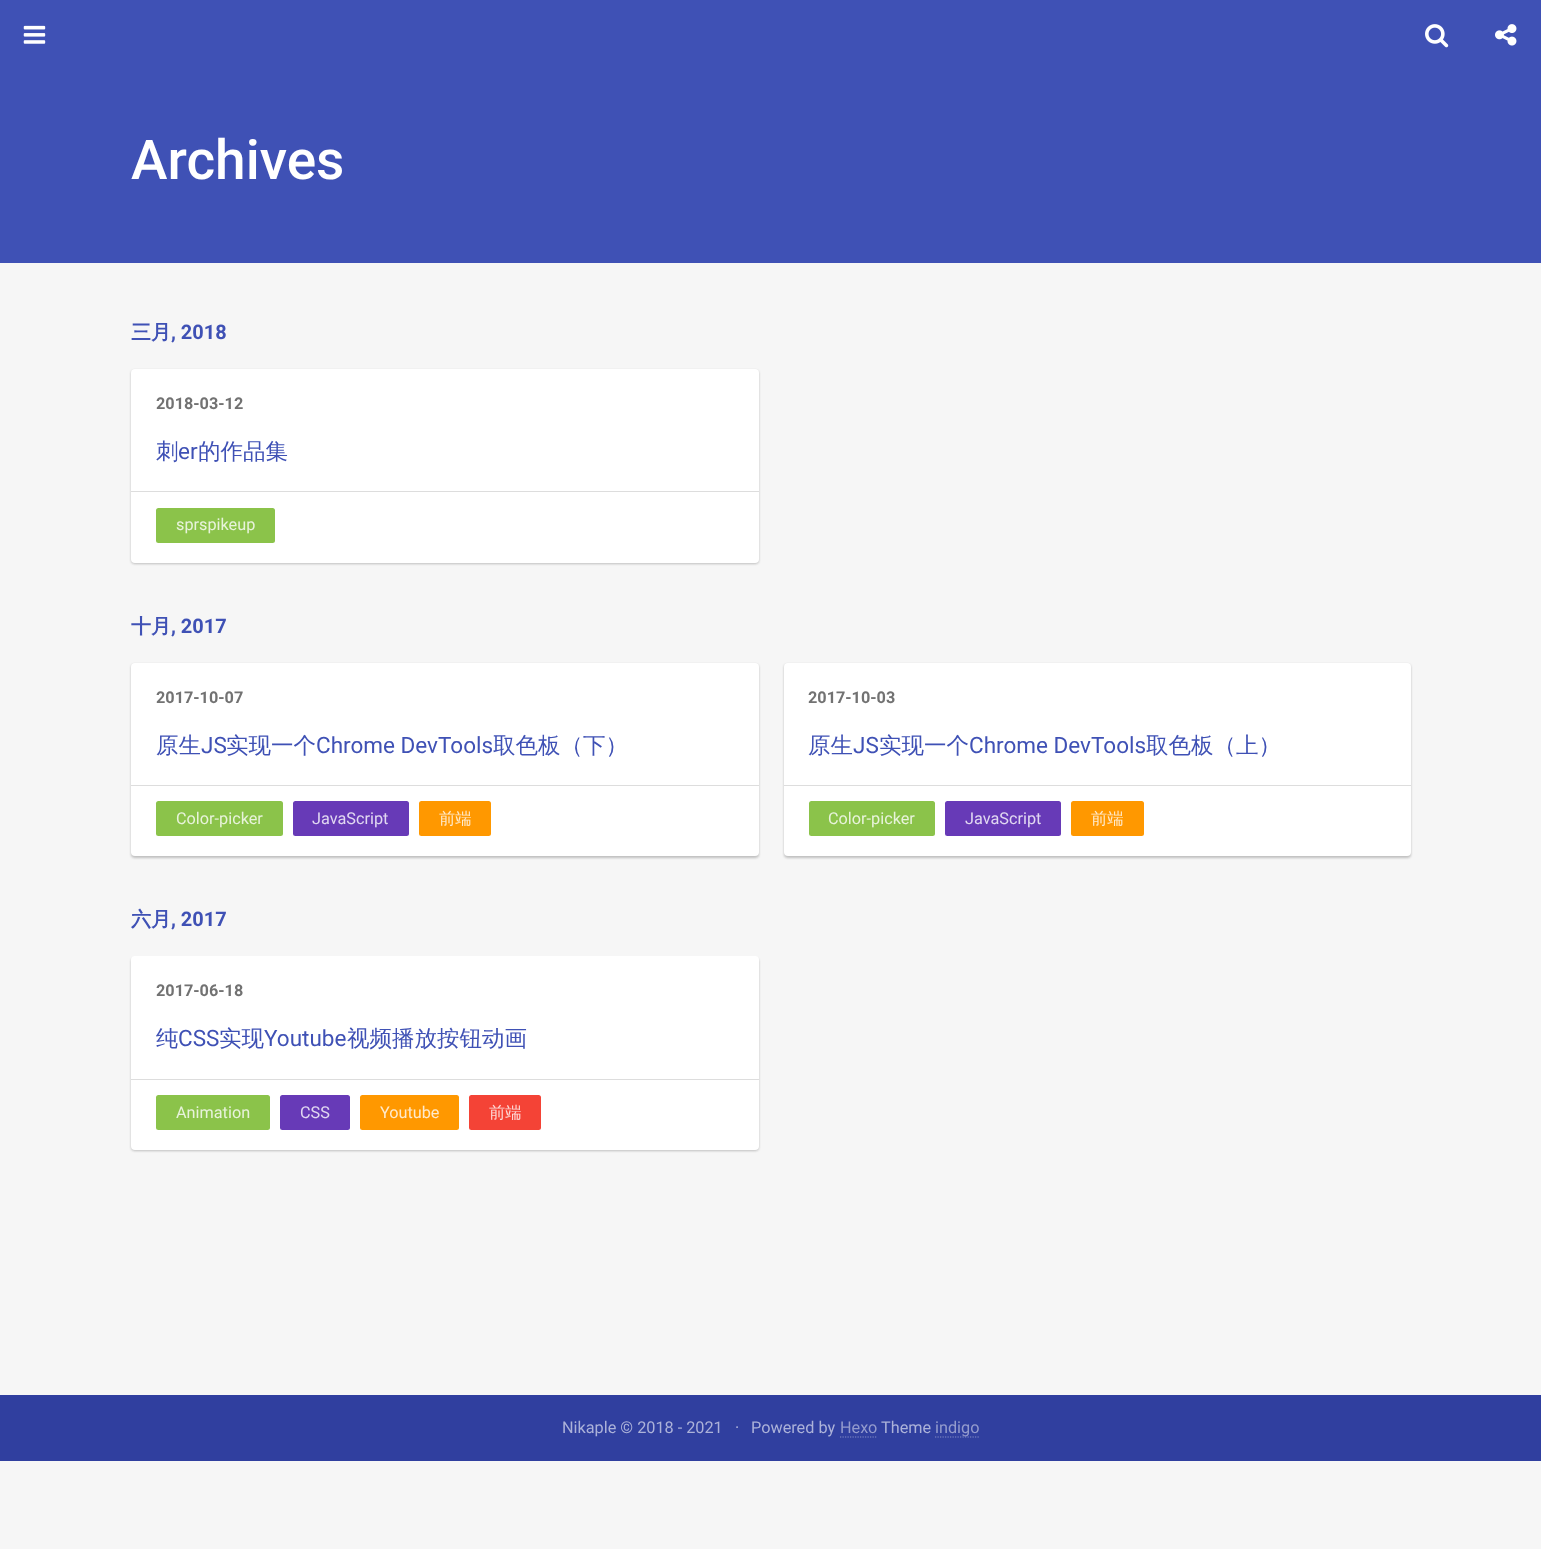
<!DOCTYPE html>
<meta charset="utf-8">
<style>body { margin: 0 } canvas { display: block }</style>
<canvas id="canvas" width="1541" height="1549"></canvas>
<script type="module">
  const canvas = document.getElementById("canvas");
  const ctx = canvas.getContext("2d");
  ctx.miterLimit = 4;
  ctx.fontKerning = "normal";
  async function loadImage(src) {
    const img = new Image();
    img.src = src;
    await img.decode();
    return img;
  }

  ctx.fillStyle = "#f6f6f6";
  ctx.fillRect(0, 0, 1541, 1549);
  ctx.fillStyle = "#3f51b5";
  ctx.fillRect(0, 0, 1541, 263);
  ctx.drawImage(await loadImage("img1.png"), 23, 25, 23, 19);
  ctx.drawImage(await loadImage("img2.png"), 1425, 24, 24, 24);
  ctx.drawImage(await loadImage("img3.png"), 1495, 24, 22, 22);
  ctx.font = "500 55px Roboto";
  ctx.fillStyle = "#ffffff";
  ctx.fillText("Archives", 131, 179);
  ctx.font = "bold 20px WenQuanYi Zen Hei";
  ctx.fillStyle = "#3f51b5";
  ctx.fillText("三月", 131, 339);
  ctx.font = "bold 20px Roboto";
  ctx.fillText(", 2018", 171, 339);
  ctx.fillStyle = "rgba(151, 151, 151, 0.58)";
  ctx.filter = "blur(1px)";
  ctx.beginPath();
  ctx.roundRect(131, 370, 628, 194, 4);
  ctx.fill();
  ctx.filter = "none";
  ctx.fillStyle = "#ffffff";
  ctx.beginPath();
  ctx.roundRect(131, 369, 628, 194, 4);
  ctx.fill();
  ctx.font = "bold 16.25px Roboto";
  ctx.fillStyle = "#727272";
  ctx.fillText("2018-03-12", 156, 409);
  ctx.font = "500 22.5px WenQuanYi Zen Hei";
  ctx.fillStyle = "#3f51b5";
  ctx.fillText("刺", 156, 459);
  ctx.font = "22.5px Roboto";
  ctx.fillText("er", 178, 459);
  ctx.font = "500 22.5px WenQuanYi Zen Hei";
  ctx.fillText("的作品集", 198, 459);
  ctx.fillStyle = "#dddddd";
  ctx.fillRect(131, 491, 628, 1);
  ctx.fillStyle = "#8bc34a";
  ctx.beginPath();
  ctx.roundRect(156, 508, 119, 35, 2.5);
  ctx.fill();
  ctx.font = "16.25px Roboto";
  ctx.fillStyle = "#e8f3db";
  ctx.fillText("sprspikeup", 176, 530);
  ctx.font = "bold 20px WenQuanYi Zen Hei";
  ctx.fillStyle = "#3f51b5";
  ctx.fillText("十月", 131, 633);
  ctx.font = "bold 20px Roboto";
  ctx.fillText(", 2017", 171, 633);
  ctx.fillStyle = "rgba(151, 151, 151, 0.58)";
  ctx.filter = "blur(1px)";
  ctx.beginPath();
  ctx.roundRect(131, 664, 628, 194, 4);
  ctx.fill();
  ctx.filter = "none";
  ctx.fillStyle = "#ffffff";
  ctx.beginPath();
  ctx.roundRect(131, 663, 628, 193, 4);
  ctx.fill();
  ctx.font = "bold 16.25px Roboto";
  ctx.fillStyle = "#727272";
  ctx.fillText("2017-10-07", 156, 703);
  ctx.font = "500 22.5px WenQuanYi Zen Hei";
  ctx.fillStyle = "#3f51b5";
  ctx.fillText("原生", 156, 753);
  ctx.font = "22.5px Roboto";
  ctx.fillText("JS", 201, 753);
  ctx.font = "500 22.5px WenQuanYi Zen Hei";
  ctx.fillText("实现一个", 226, 753);
  ctx.font = "22.5px Roboto";
  ctx.fillText("Chrome DevTools", 316, 753);
  ctx.font = "500 22.5px WenQuanYi Zen Hei";
  ctx.fillText("取色板（下）", 493, 753);
  ctx.fillStyle = "#dddddd";
  ctx.fillRect(131, 785, 628, 1);
  ctx.fillStyle = "#8bc34a";
  ctx.beginPath();
  ctx.roundRect(156, 801, 127, 35, 2.5);
  ctx.fill();
  ctx.font = "16.25px Roboto";
  ctx.fillStyle = "#e8f3db";
  ctx.fillText("Color-picker", 176, 824);
  ctx.fillStyle = "#673ab7";
  ctx.beginPath();
  ctx.roundRect(293, 801, 116, 35, 2.5);
  ctx.fill();
  ctx.fillStyle = "#e1d8f1";
  ctx.fillText("JavaScript", 312, 824);
  ctx.fillStyle = "#ff9800";
  ctx.beginPath();
  ctx.roundRect(419, 801, 72, 35, 2.5);
  ctx.fill();
  ctx.font = "500 16.25px WenQuanYi Zen Hei";
  ctx.fillStyle = "#ffeacc";
  ctx.fillText("前端", 439, 824);
  ctx.fillStyle = "rgba(151, 151, 151, 0.58)";
  ctx.filter = "blur(1px)";
  ctx.beginPath();
  ctx.roundRect(784, 664, 627, 194, 4);
  ctx.fill();
  ctx.filter = "none";
  ctx.fillStyle = "#ffffff";
  ctx.beginPath();
  ctx.roundRect(784, 663, 627, 193, 4);
  ctx.fill();
  ctx.font = "bold 16.25px Roboto";
  ctx.fillStyle = "#727272";
  ctx.fillText("2017-10-03", 808, 703);
  ctx.font = "500 22.5px WenQuanYi Zen Hei";
  ctx.fillStyle = "#3f51b5";
  ctx.fillText("原生", 808, 753);
  ctx.font = "22.5px Roboto";
  ctx.fillText("JS", 853, 753);
  ctx.font = "500 22.5px WenQuanYi Zen Hei";
  ctx.fillText("实现一个", 879, 753);
  ctx.font = "22.5px Roboto";
  ctx.fillText("Chrome DevTools", 969, 753);
  ctx.font = "500 22.5px WenQuanYi Zen Hei";
  ctx.fillText("取色板（上）", 1146, 753);
  ctx.fillStyle = "#dddddd";
  ctx.fillRect(784, 785, 627, 1);
  ctx.fillStyle = "#8bc34a";
  ctx.beginPath();
  ctx.roundRect(809, 801, 126, 35, 2.5);
  ctx.fill();
  ctx.font = "16.25px Roboto";
  ctx.fillStyle = "#e8f3db";
  ctx.fillText("Color-picker", 828, 824);
  ctx.fillStyle = "#673ab7";
  ctx.beginPath();
  ctx.roundRect(945, 801, 116, 35, 2.5);
  ctx.fill();
  ctx.fillStyle = "#e1d8f1";
  ctx.fillText("JavaScript", 965, 824);
  ctx.fillStyle = "#ff9800";
  ctx.beginPath();
  ctx.roundRect(1071, 801, 73, 35, 2.5);
  ctx.fill();
  ctx.font = "500 16.25px WenQuanYi Zen Hei";
  ctx.fillStyle = "#ffeacc";
  ctx.fillText("前端", 1091, 824);
  ctx.font = "bold 20px WenQuanYi Zen Hei";
  ctx.fillStyle = "#3f51b5";
  ctx.fillText("六月", 131, 926);
  ctx.font = "bold 20px Roboto";
  ctx.fillText(", 2017", 171, 926);
  ctx.fillStyle = "rgba(151, 151, 151, 0.58)";
  ctx.filter = "blur(1px)";
  ctx.beginPath();
  ctx.roundRect(131, 958, 628, 193, 4);
  ctx.fill();
  ctx.filter = "none";
  ctx.fillStyle = "#ffffff";
  ctx.beginPath();
  ctx.roundRect(131, 956, 628, 194, 4);
  ctx.fill();
  ctx.font = "bold 16.25px Roboto";
  ctx.fillStyle = "#727272";
  ctx.fillText("2017-06-18", 156, 996);
  ctx.font = "500 22.5px WenQuanYi Zen Hei";
  ctx.fillStyle = "#3f51b5";
  ctx.fillText("纯", 156, 1046);
  ctx.font = "22.5px Roboto";
  ctx.fillText("CSS", 178, 1046);
  ctx.font = "500 22.5px WenQuanYi Zen Hei";
  ctx.fillText("实现", 219, 1046);
  ctx.font = "22.5px Roboto";
  ctx.fillText("Youtube", 264, 1046);
  ctx.font = "500 22.5px WenQuanYi Zen Hei";
  ctx.fillText("视频播放按钮动画", 347, 1046);
  ctx.fillStyle = "#dddddd";
  ctx.fillRect(131, 1079, 628, 1);
  ctx.fillStyle = "#8bc34a";
  ctx.beginPath();
  ctx.roundRect(156, 1095, 114, 35, 2.5);
  ctx.fill();
  ctx.font = "16.25px Roboto";
  ctx.fillStyle = "#e8f3db";
  ctx.fillText("Animation", 176, 1118);
  ctx.fillStyle = "#673ab7";
  ctx.beginPath();
  ctx.roundRect(280, 1095, 70, 35, 2.5);
  ctx.fill();
  ctx.fillStyle = "#e1d8f1";
  ctx.fillText("CSS", 300, 1118);
  ctx.fillStyle = "#ff9800";
  ctx.beginPath();
  ctx.roundRect(360, 1095, 99, 35, 2.5);
  ctx.fill();
  ctx.fillStyle = "#ffeacc";
  ctx.fillText("Youtube", 380, 1118);
  ctx.fillStyle = "#f44336";
  ctx.beginPath();
  ctx.roundRect(469, 1095, 72, 35, 2.5);
  ctx.fill();
  ctx.font = "500 16.25px WenQuanYi Zen Hei";
  ctx.fillStyle = "#fdd9d7";
  ctx.fillText("前端", 489, 1118);
  ctx.fillStyle = "#303f9f";
  ctx.fillRect(0, 1395, 1541, 66);
  ctx.font = "16.25px Roboto";
  ctx.fillStyle = "#acb2d9";
  ctx.fillText("Nikaple © 2018 - 2021", 562, 1433);
  ctx.fillText("·", 735, 1433);
  ctx.fillText("Powered by", 751, 1433);
  ctx.fillStyle = "#949bcd";
  ctx.fillText("Hexo", 840, 1433);
  ctx.beginPath();
  ctx.moveTo(840, 1437);
  ctx.lineTo(877.5, 1437);
  ctx.strokeStyle = "#838cc6";
  ctx.lineWidth = 1.2;
  ctx.setLineDash([1.25, 1.25]);
  ctx.stroke();
  ctx.fillStyle = "#acb2d9";
  ctx.fillText("Theme", 881, 1433);
  ctx.beginPath();
  ctx.moveTo(935, 1437);
  ctx.lineTo(979, 1437);
  ctx.stroke();
  ctx.fillStyle = "#949bcd";
  ctx.fillText("indigo", 935, 1433);
</script>
